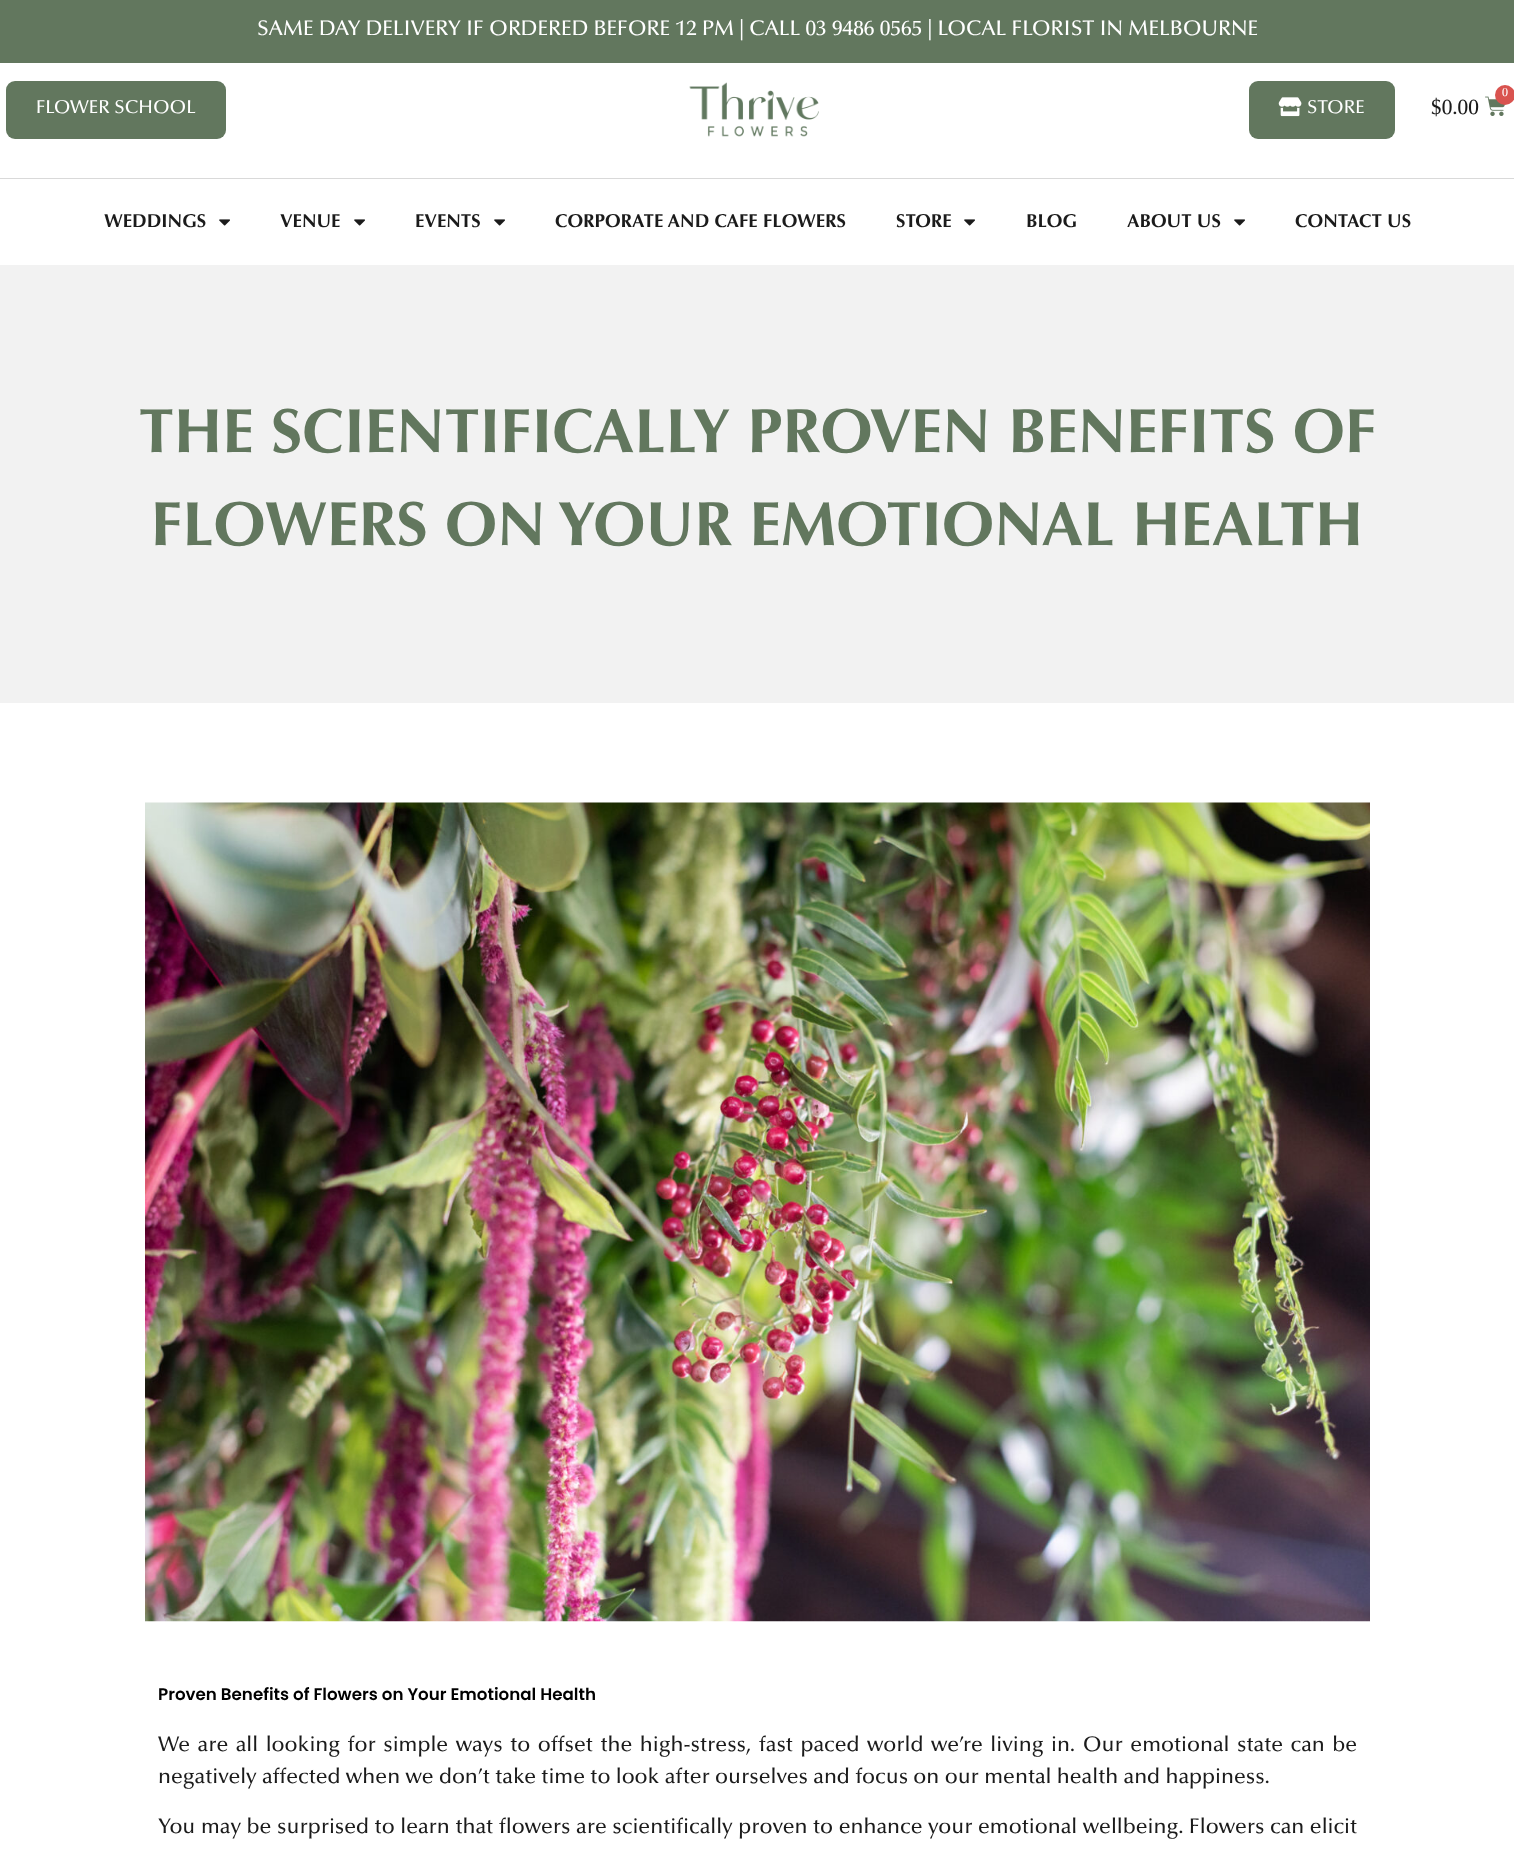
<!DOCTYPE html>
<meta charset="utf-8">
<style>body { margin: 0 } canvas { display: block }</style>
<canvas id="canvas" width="1514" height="1861"></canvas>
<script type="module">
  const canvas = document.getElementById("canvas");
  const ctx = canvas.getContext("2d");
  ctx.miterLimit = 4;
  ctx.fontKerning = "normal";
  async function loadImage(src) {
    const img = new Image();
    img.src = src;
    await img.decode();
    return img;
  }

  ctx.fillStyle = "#ffffff";
  ctx.fillRect(0, 0, 1514, 1861);
  ctx.fillStyle = "#62775e";
  ctx.fillRect(0, 0, 1514, 63);
  ctx.font = "500 21.25px Optima";
  ctx.fillStyle = "#ffffff";
  ctx.fillText("SAME DAY DELIVERY IF ORDERED BEFORE 12 PM | CALL 03 9486 0565 | LOCAL FLORIST IN MELBOURNE", 257, 35);
  ctx.fillStyle = "#d9d9d9";
  ctx.fillRect(0, 178, 1514, 1);
  ctx.fillStyle = "#62775e";
  ctx.beginPath();
  ctx.roundRect(6, 81, 220, 58, 9);
  ctx.fill();
  ctx.font = "500 18.75px Optima";
  ctx.fillStyle = "#ffffff";
  ctx.fillText("FLOWER SCHOOL", 36, 113);
  ctx.drawImage(await loadImage("img1.png"), 689, 82, 130, 55);
  ctx.fillStyle = "#62775e";
  ctx.beginPath();
  ctx.roundRect(1249, 81, 146, 58, 9);
  ctx.fill();
  ctx.drawImage(await loadImage("img2.png"), 1278, 97, 24, 20);
  ctx.fillStyle = "#ffffff";
  ctx.fillText("STORE", 1307, 113);
  ctx.drawImage(await loadImage("img3.png"), 1485, 96, 20, 20);
  ctx.fillStyle = "#d9534f";
  ctx.beginPath();
  ctx.arc(1505, 95, 10, 0, Math.PI * 2);
  ctx.fill();
  ctx.font = "500 12px Optima";
  ctx.fillStyle = "#ffffff";
  ctx.fillText("0", 1502, 96);
  ctx.font = "500 21.25px Optima";
  ctx.fillStyle = "#1b1b1b";
  ctx.fillText("$0.00", 1431, 114);
  ctx.font = "bold 18.75px Optima";
  ctx.fillText("WEDDINGS", 104, 227);
  ctx.drawImage(await loadImage("img4.png"), 219, 219, 11, 7);
  ctx.fillText("VENUE", 280, 227);
  ctx.drawImage(await loadImage("img4.png"), 354, 219, 11, 7);
  ctx.fillText("EVENTS", 415, 227);
  ctx.drawImage(await loadImage("img4.png"), 494, 219, 11, 7);
  ctx.fillText("CORPORATE AND CAFE FLOWERS", 555, 227);
  ctx.fillText("STORE", 896, 227);
  ctx.drawImage(await loadImage("img4.png"), 964, 219, 11, 7);
  ctx.fillText("BLOG", 1026, 227);
  ctx.fillText("ABOUT US", 1127, 227);
  ctx.drawImage(await loadImage("img4.png"), 1234, 219, 11, 7);
  ctx.fillText("CONTACT US", 1295, 227);
  ctx.fillStyle = "#f2f2f2";
  ctx.fillRect(0, 265, 1514, 438);
  ctx.font = "bold 62.5px Optima";
  ctx.fillStyle = "#62775e";
  ctx.fillText("THE SCIENTIFICALLY PROVEN BENEFITS OF", 139, 452);
  ctx.fillText("FLOWERS ON YOUR EMOTIONAL HEALTH", 151, 545);
  ctx.drawImage(await loadImage("img5.png"), 145, 802, 1225, 820);
  ctx.font = "600 16.7px Poppins";
  ctx.fillStyle = "#000000";
  ctx.fillText("Proven Benefits of Flowers on Your Emotional Health", 158, 1700);
  ctx.wordSpacing = "2.2px";
  ctx.font = "500 21.25px Optima";
  ctx.fillStyle = "#1b1b1b";
  ctx.fillText("We are all looking for simple ways to offset the high-stress, fast paced world we’re living in. Our emotional state can be", 158, 1751);
  ctx.wordSpacing = "0px";
  ctx.fillText("negatively affected when we don’t take time to look after ourselves and focus on our mental health and happiness.", 158, 1783);
  ctx.wordSpacing = "0.25px";
  ctx.fillText("You may be surprised to learn that flowers are scientifically proven to enhance your emotional wellbeing. Flowers can elicit", 158, 1833);
</script>
